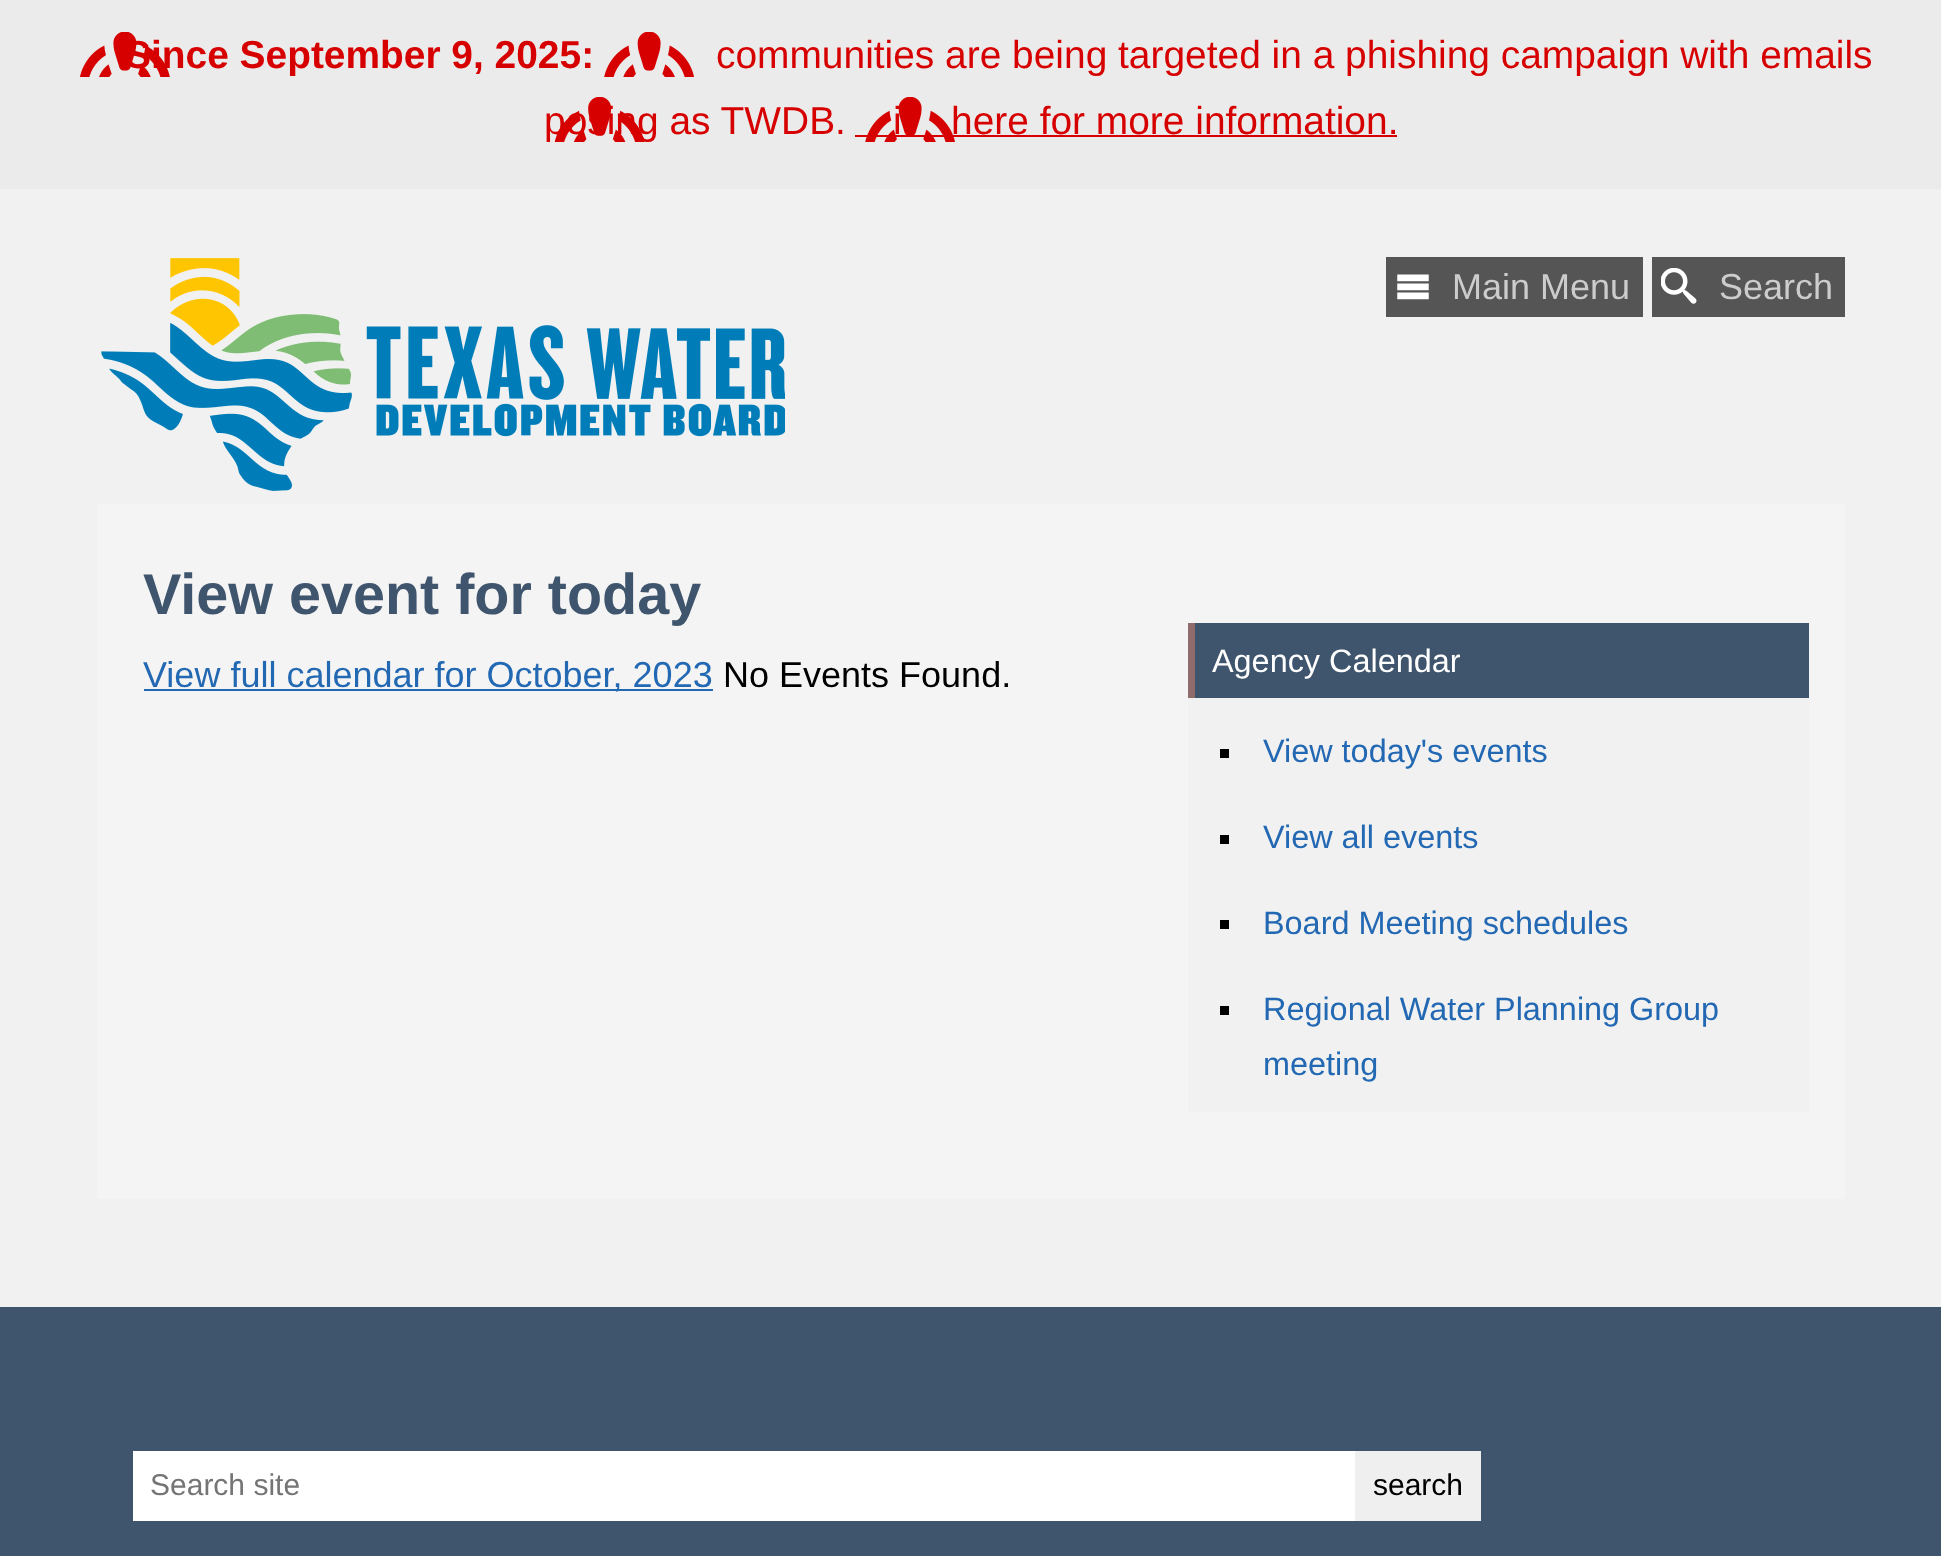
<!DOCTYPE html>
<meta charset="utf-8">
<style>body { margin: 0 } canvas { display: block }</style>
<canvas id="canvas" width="1941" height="1556"></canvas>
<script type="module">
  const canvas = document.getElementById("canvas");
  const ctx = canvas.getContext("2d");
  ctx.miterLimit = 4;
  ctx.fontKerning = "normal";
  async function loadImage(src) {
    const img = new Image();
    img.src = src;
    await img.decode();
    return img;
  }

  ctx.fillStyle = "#f1f1f1";
  ctx.fillRect(0, 0, 1941, 1556);
  ctx.fillStyle = "#ebebeb";
  ctx.fillRect(0, 0, 1941, 189);
  ctx.drawImage(await loadImage("img1.png"), 80, 32, 875, 110);
  ctx.font = "bold 38.9px Liberation Sans";
  ctx.fillStyle = "#d70000";
  ctx.fillText("Since September 9, 2025:", 125, 68);
  ctx.font = "38.9px Liberation Sans";
  ctx.fillText("communities are being targeted in a phishing campaign with emails", 716, 68);
  ctx.fillText("posing as TWDB.", 544, 134);
  ctx.fillText("i", 893, 134);
  ctx.fillText("here for more information.", 951, 134);
  ctx.fillRect(855, 135, 542, 2);
  ctx.drawImage(await loadImage("img2.png"), 101, 258, 684, 233);
  ctx.fillStyle = "#555555";
  ctx.fillRect(1386, 257, 257, 60);
  ctx.drawImage(await loadImage("img3.png"), 1397, 274, 32, 26);
  ctx.font = "36px Liberation Sans";
  ctx.fillStyle = "#cccccc";
  ctx.fillText("Main Menu", 1452, 299);
  ctx.fillStyle = "#555555";
  ctx.fillRect(1652, 257, 193, 60);
  ctx.drawImage(await loadImage("img4.png"), 1661, 268, 36, 36);
  ctx.fillStyle = "#cccccc";
  ctx.fillText("Search", 1719, 299);
  ctx.fillStyle = "#f4f4f4";
  ctx.fillRect(97, 504, 1748, 695);
  ctx.font = "bold 57.5px Liberation Sans";
  ctx.fillStyle = "#3f556d";
  ctx.fillText("View event for today", 143, 614);
  ctx.fillStyle = "#2268b3";
  ctx.fillRect(144, 689, 569, 2);
  ctx.font = "36px Liberation Sans";
  ctx.fillText("View full calendar for October, 2023", 143, 687);
  ctx.fillStyle = "#000000";
  ctx.fillText("No Events Found.", 723, 687);
  ctx.fillStyle = "#3f556d";
  ctx.fillRect(1195, 623, 614, 75);
  ctx.fillStyle = "#8f6c6c";
  ctx.fillRect(1188, 623, 7, 75);
  ctx.font = "32.4px Liberation Sans";
  ctx.fillStyle = "#ffffff";
  ctx.fillText("Agency Calendar", 1212, 672);
  ctx.fillStyle = "#f1f1f1";
  ctx.fillRect(1188, 698, 621, 414);
  ctx.fillStyle = "#000000";
  ctx.fillRect(1220, 749, 9, 9);
  ctx.fillStyle = "#2268b3";
  ctx.fillText("View today's events", 1263, 762);
  ctx.fillStyle = "#000000";
  ctx.fillRect(1220, 835, 9, 9);
  ctx.fillStyle = "#2268b3";
  ctx.fillText("View all events", 1263, 848);
  ctx.fillStyle = "#000000";
  ctx.fillRect(1220, 920, 9, 9);
  ctx.fillStyle = "#2268b3";
  ctx.fillText("Board Meeting schedules", 1263, 934);
  ctx.fillStyle = "#000000";
  ctx.fillRect(1220, 1006, 9, 9);
  ctx.fillStyle = "#2268b3";
  ctx.fillText("Regional Water Planning Group", 1263, 1020);
  ctx.fillText("meeting", 1263, 1075);
  ctx.fillStyle = "#3f556d";
  ctx.fillRect(0, 1307, 1941, 249);
  ctx.fillStyle = "#ffffff";
  ctx.fillRect(133, 1451, 1222, 70);
  ctx.font = "30px Liberation Sans";
  ctx.fillStyle = "#757575";
  ctx.fillText("Search site", 150, 1495);
  ctx.fillStyle = "#efefef";
  ctx.fillRect(1355, 1451, 126, 70);
  ctx.fillStyle = "#000000";
  ctx.fillText("search", 1373, 1495);
</script>
